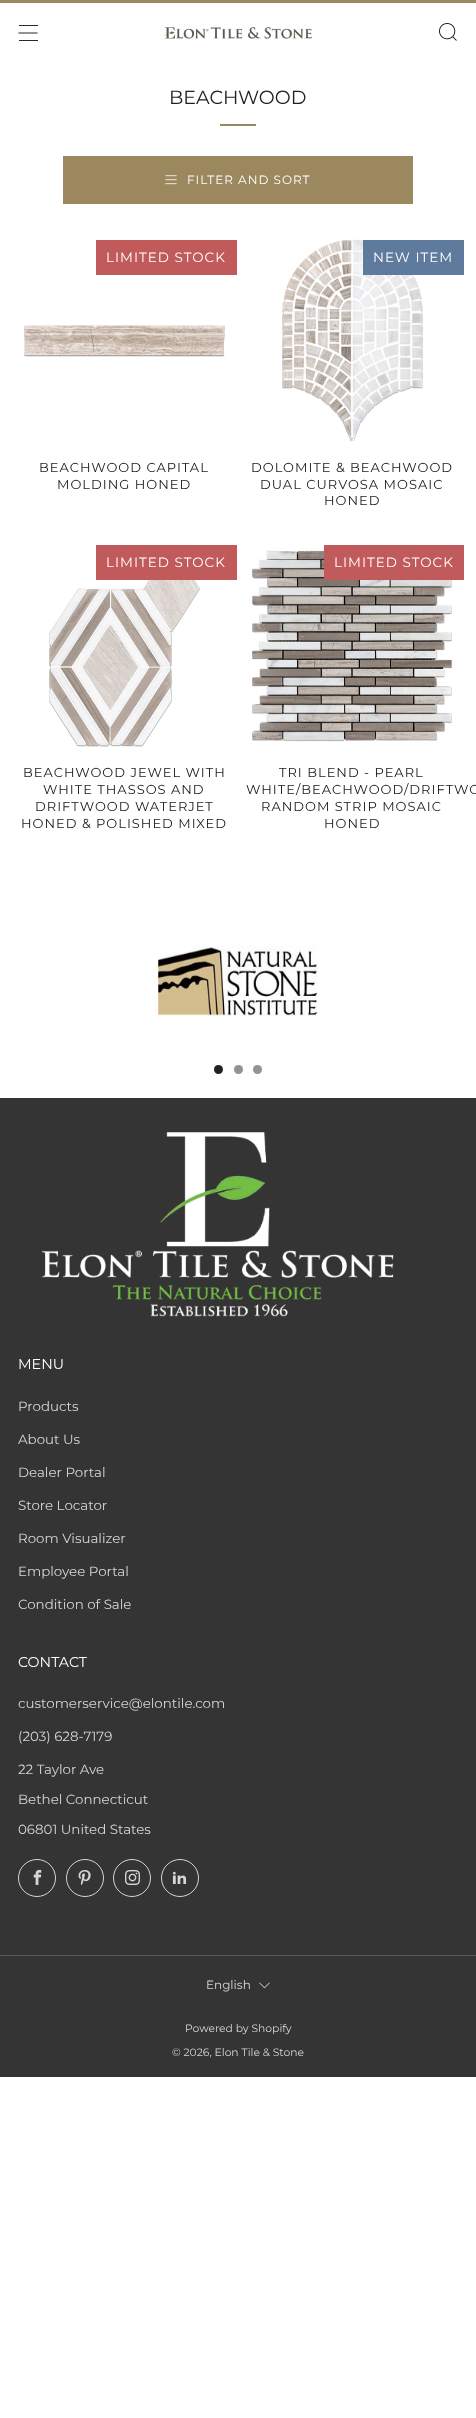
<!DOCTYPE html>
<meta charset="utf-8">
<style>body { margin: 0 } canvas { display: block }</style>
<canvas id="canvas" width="476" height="2418"></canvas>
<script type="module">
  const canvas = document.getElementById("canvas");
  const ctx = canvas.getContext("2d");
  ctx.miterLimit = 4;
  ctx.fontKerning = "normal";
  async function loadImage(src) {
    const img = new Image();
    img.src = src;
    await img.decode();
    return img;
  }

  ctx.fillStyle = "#ffffff";
  ctx.fillRect(0, 0, 476, 2418);
  ctx.fillStyle = "#9c885e";
  ctx.fillRect(0, 0, 476, 3);
  ctx.fillStyle = "#292929";
  ctx.fillRect(19, 25, 19, 1);
  ctx.beginPath();
  ctx.moveTo(18.5, 33);
  ctx.lineTo(37.5, 33);
  ctx.strokeStyle = "#111111";
  ctx.lineWidth = 0.9;
  ctx.stroke();
  ctx.fillRect(19, 40, 19, 1);
  ctx.drawImage(await loadImage("img1.png"), 164, 27, 148, 12);
  ctx.drawImage(await loadImage("img2.png"), 439, 23, 18, 18);
  ctx.font = "19px Montserrat";
  ctx.fillStyle = "#212121";
  ctx.fillText("BEACHWOOD", 169, 104);
  ctx.fillStyle = "#9c885e";
  ctx.fillRect(220, 124, 36, 2);
  ctx.fillRect(63, 156, 350, 48);
  ctx.drawImage(await loadImage("img3.png"), 165, 175, 12, 10);
  ctx.letterSpacing = "1px";
  ctx.font = "12px Montserrat";
  ctx.fillStyle = "#ffffff";
  ctx.fillText("FILTER AND SORT", 187, 184);
  ctx.fillStyle = "#c15b5b";
  ctx.fillRect(96, 240, 141, 35);
  ctx.font = "13.5px Montserrat";
  ctx.fillStyle = "#ffffff";
  ctx.fillText("LIMITED STOCK", 106, 262);
  ctx.drawImage(await loadImage("img4.png"), 24, 325, 201, 32);
  ctx.font = "13px Montserrat";
  ctx.fillStyle = "#212121";
  ctx.fillText("BEACHWOOD CAPITAL", 39, 472);
  ctx.fillText("MOLDING HONED", 57, 489);
  ctx.drawImage(await loadImage("img5.png"), 282, 239, 141, 203);
  ctx.fillStyle = "#5e7a9c";
  ctx.fillRect(363, 240, 101, 35);
  ctx.font = "13.5px Montserrat";
  ctx.fillStyle = "#ffffff";
  ctx.fillText("NEW ITEM", 373, 262);
  ctx.font = "13px Montserrat";
  ctx.fillStyle = "#212121";
  ctx.fillText("DOLOMITE & BEACHWOOD", 251, 472);
  ctx.fillText("DUAL CURVOSA MOSAIC", 260, 489);
  ctx.fillText("HONED", 324, 505);
  ctx.fillStyle = "#c15b5b";
  ctx.fillRect(96, 545, 141, 35);
  ctx.font = "13.5px Montserrat";
  ctx.fillStyle = "#ffffff";
  ctx.fillText("LIMITED STOCK", 106, 567);
  ctx.drawImage(await loadImage("img6.png"), 49, 580, 151, 167);
  ctx.font = "13px Montserrat";
  ctx.fillStyle = "#212121";
  ctx.fillText("BEACHWOOD JEWEL WITH", 23, 777);
  ctx.fillText("WHITE THASSOS AND", 43, 794);
  ctx.fillText("DRIFTWOOD WATERJET", 35, 811);
  ctx.fillText("HONED & POLISHED MIXED", 21, 828);
  ctx.drawImage(await loadImage("img7.png"), 252, 550, 200, 192);
  ctx.fillStyle = "#c15b5b";
  ctx.fillRect(324, 545, 140, 35);
  ctx.font = "13.5px Montserrat";
  ctx.fillStyle = "#ffffff";
  ctx.fillText("LIMITED STOCK", 334, 567);
  ctx.font = "13px Montserrat";
  ctx.fillStyle = "#212121";
  ctx.fillText("TRI BLEND - PEARL", 279, 777);
  ctx.fillText("WHITE/BEACHWOOD/DRIFTWO", 246, 794);
  ctx.fillText("RANDOM STRIP MOSAIC", 261, 811);
  ctx.fillText("HONED", 324, 828);
  ctx.drawImage(await loadImage("img8.png"), 158, 946, 160, 70);
  ctx.beginPath();
  ctx.arc(218.5, 1069.5, 4.5, 0, Math.PI * 2);
  ctx.fill();
  ctx.fillStyle = "#c5c5c5";
  ctx.beginPath();
  ctx.arc(238.5, 1069.5, 4.5, 0, Math.PI * 2);
  ctx.fill();
  ctx.fillStyle = "rgba(33, 33, 33, 0.3)";
  ctx.beginPath();
  ctx.arc(238.5, 1069.5, 4.5, 0, Math.PI * 2);
  ctx.fill();
  ctx.fillStyle = "#c5c5c5";
  ctx.beginPath();
  ctx.arc(257.5, 1069.5, 4.5, 0, Math.PI * 2);
  ctx.fill();
  ctx.fillStyle = "rgba(33, 33, 33, 0.3)";
  ctx.beginPath();
  ctx.arc(257.5, 1069.5, 4.5, 0, Math.PI * 2);
  ctx.fill();
  ctx.fillStyle = "#343434";
  ctx.fillRect(0, 1098, 476, 979);
  ctx.drawImage(await loadImage("img9.png"), 42, 1132, 352, 185);
  ctx.letterSpacing = "0px";
  ctx.font = "14.25px Montserrat";
  ctx.fillStyle = "#ffffff";
  ctx.fillText("MENU", 18, 1369);
  ctx.font = "13.4px Montserrat";
  ctx.fillStyle = "#d6d6d6";
  ctx.fillText("Products", 18, 1411);
  ctx.fillText("About Us", 18, 1444);
  ctx.fillText("Dealer Portal", 18, 1477);
  ctx.fillText("Store Locator", 18, 1510);
  ctx.fillText("Room Visualizer", 18, 1543);
  ctx.fillText("Employee Portal", 18, 1576);
  ctx.fillText("Condition of Sale", 18, 1609);
  ctx.font = "14.25px Montserrat";
  ctx.fillStyle = "#ffffff";
  ctx.fillText("CONTACT", 18, 1667);
  ctx.font = "13.4px Montserrat";
  ctx.fillStyle = "#d6d6d6";
  ctx.fillText("customerservice@elontile.com", 18, 1708);
  ctx.fillText("(203) 628-7179", 18, 1741);
  ctx.fillText("22 Taylor Ave", 18, 1774);
  ctx.fillText("Bethel Connecticut", 18, 1804);
  ctx.fillText("06801 United States", 18, 1834);
  ctx.beginPath();
  ctx.arc(37, 1878, 18.5, 0, Math.PI * 2);
  ctx.strokeStyle = "#d6d6d6";
  ctx.lineWidth = 1;
  ctx.stroke();
  ctx.drawImage(await loadImage("img10.png"), 33, 1869, 9, 16);
  ctx.beginPath();
  ctx.arc(85, 1878, 18.5, 0, Math.PI * 2);
  ctx.stroke();
  ctx.drawImage(await loadImage("img11.png"), 78, 1870, 13, 15);
  ctx.beginPath();
  ctx.arc(132, 1878, 18.5, 0, Math.PI * 2);
  ctx.stroke();
  ctx.drawImage(await loadImage("img12.png"), 125, 1870, 15, 15);
  ctx.beginPath();
  ctx.arc(180, 1878, 18.5, 0, Math.PI * 2);
  ctx.stroke();
  ctx.drawImage(await loadImage("img13.png"), 172, 1871, 15, 13);
  ctx.fillStyle = "#5d5d5d";
  ctx.fillRect(0, 1955, 476, 1);
  ctx.font = "12px Montserrat";
  ctx.fillStyle = "#d6d6d6";
  ctx.fillText("English", 206, 1989);
  ctx.drawImage(await loadImage("img14.png"), 259, 1982, 11, 7);
  ctx.font = "10.75px Montserrat";
  ctx.fillText("Powered by Shopify", 185, 2032);
  ctx.fillText("© 2026, Elon Tile & Stone", 172, 2056);
</script>
